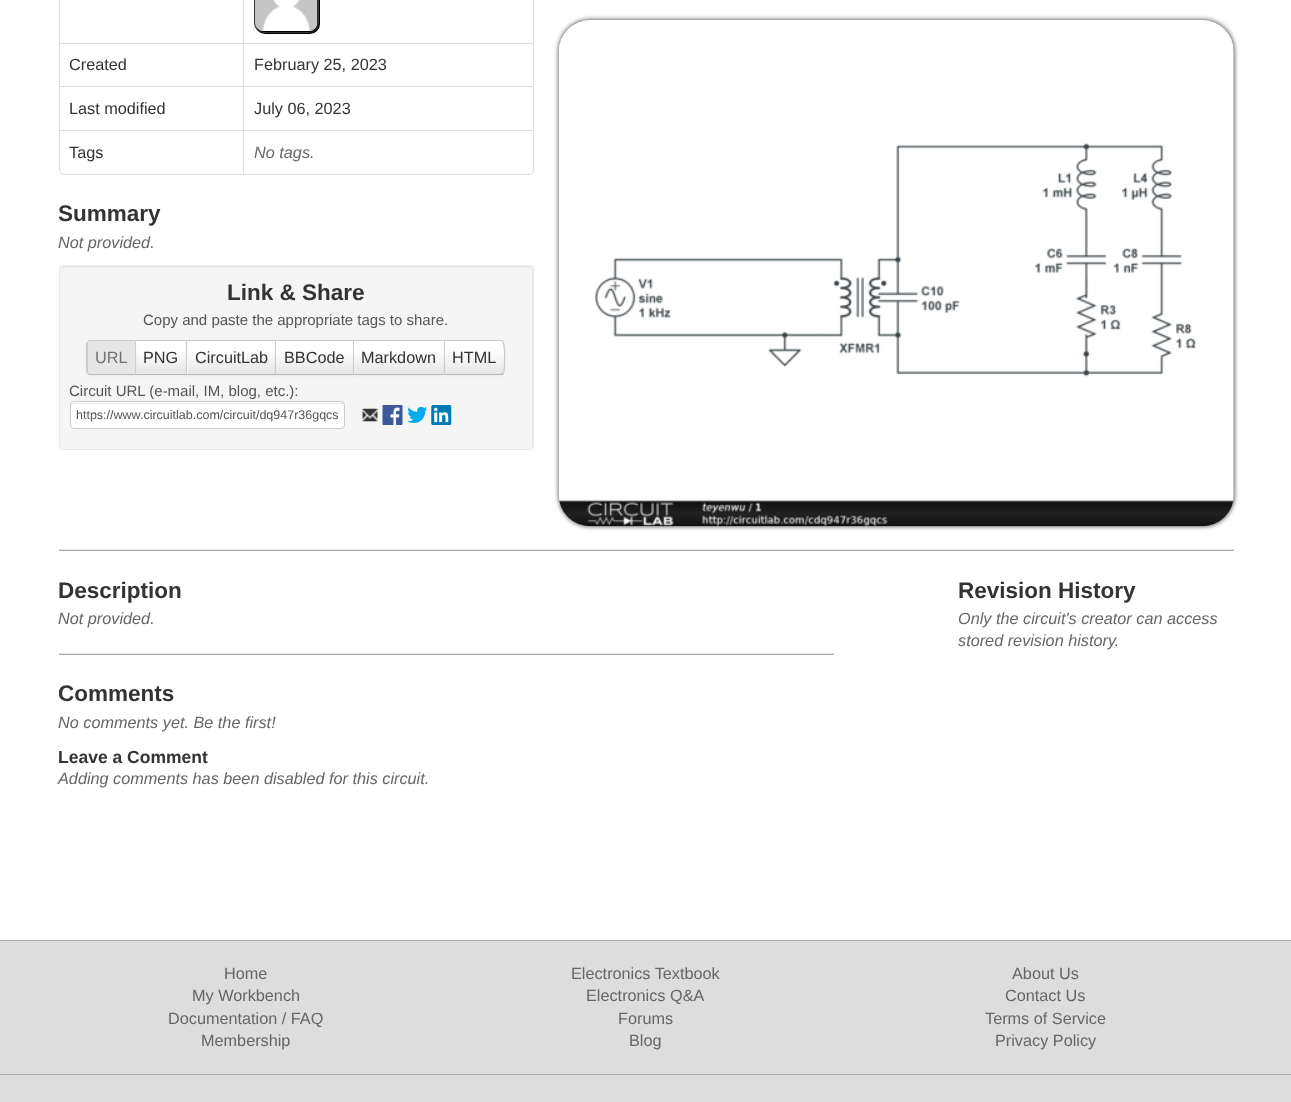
<!DOCTYPE html>
<meta charset="utf-8">
<style>body { margin: 0 } canvas { display: block }</style>
<canvas id="canvas" width="1291" height="1102"></canvas>
<script type="module">
  const canvas = document.getElementById("canvas");
  const ctx = canvas.getContext("2d");
  ctx.miterLimit = 4;
  ctx.fontKerning = "normal";
  async function loadImage(src) {
    const img = new Image();
    img.src = src;
    await img.decode();
    return img;
  }
  let gradient;

  ctx.fillStyle = "#ffffff";
  ctx.fillRect(0, 0, 1291, 1102);
  ctx.beginPath();
  ctx.roundRect(59.5, -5.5, 474, 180, 4.5);
  ctx.strokeStyle = "#dddddd";
  ctx.stroke();
  ctx.fillStyle = "#dddddd";
  ctx.fillRect(243, 0, 1, 43);
  ctx.fillStyle = "#000000";
  ctx.filter = "blur(0.5px)";
  ctx.beginPath();
  ctx.roundRect(255, -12, 65, 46, 10);
  ctx.fill();
  ctx.filter = "none";
  ctx.beginPath();
  ctx.roundRect(254.5, -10.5, 64, 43, 9.5);
  ctx.strokeStyle = "#333333";
  ctx.stroke();
  ctx.drawImage(await loadImage("img1.png"), 255, 0, 63, 31);
  ctx.fillStyle = "#dddddd";
  ctx.fillRect(60, 43, 473, 1);
  ctx.font = "16.25px Liberation Sans";
  ctx.fillStyle = "#333333";
  ctx.fillText("Created", 69, 70);
  ctx.fillStyle = "#dddddd";
  ctx.fillRect(243, 43, 1, 43);
  ctx.fillStyle = "#333333";
  ctx.fillText("February 25, 2023", 254, 70);
  ctx.fillStyle = "#dddddd";
  ctx.fillRect(60, 86, 473, 1);
  ctx.fillStyle = "#333333";
  ctx.fillText("Last modified", 69, 114);
  ctx.fillStyle = "#dddddd";
  ctx.fillRect(243, 86, 1, 44);
  ctx.fillStyle = "#333333";
  ctx.fillText("July 06, 2023", 254, 114);
  ctx.fillStyle = "#dddddd";
  ctx.fillRect(60, 130, 473, 1);
  ctx.fillStyle = "#333333";
  ctx.fillText("Tags", 69, 158);
  ctx.fillStyle = "#dddddd";
  ctx.fillRect(243, 130, 1, 44);
  ctx.font = "italic 16.25px Liberation Sans";
  ctx.fillStyle = "#666666";
  ctx.fillText("No tags.", 254, 158);
  ctx.font = "bold 22.5px Liberation Sans";
  ctx.fillStyle = "#333333";
  ctx.fillText("Summary", 58, 221);
  ctx.font = "italic 16.25px Liberation Sans";
  ctx.fillStyle = "#666666";
  ctx.fillText("Not provided.", 58, 248);
  ctx.fillStyle = "#f5f5f5";
  ctx.beginPath();
  ctx.roundRect(59, 265, 475, 185, 5);
  ctx.fill();
  ctx.fillStyle = "#e9e9e9";
  ctx.beginPath();
  ctx.moveTo(64, 268);
  ctx.lineTo(529, 268);
  ctx.bezierCurveTo(531, 268, 532, 269, 532, 271);
  ctx.lineTo(532, 446);
  ctx.lineTo(532, 448);
  ctx.bezierCurveTo(532, 447, 533, 446, 533, 445);
  ctx.lineTo(533, 270);
  ctx.bezierCurveTo(533, 268, 531, 266, 529, 266);
  ctx.lineTo(64, 266);
  ctx.bezierCurveTo(62, 266, 60, 268, 60, 270);
  ctx.lineTo(60, 271);
  ctx.bezierCurveTo(60, 269, 62, 268, 64, 268);
  ctx.closePath();
  ctx.fill();
  ctx.strokeStyle = "rgba(0, 0, 0, 0.05)";
  ctx.strokeRect(59.5, 265.5, 474, 184);
  ctx.font = "bold 22.5px Liberation Sans";
  ctx.fillStyle = "#333333";
  ctx.fillText("Link & Share", 227, 300);
  ctx.font = "15px Liberation Sans";
  ctx.fillStyle = "#555555";
  ctx.fillText("Copy and paste the appropriate tags to share.", 143, 325);
  ctx.fillStyle = "rgba(0, 0, 0, 0.05)";
  ctx.filter = "blur(1px)";
  ctx.beginPath();
  ctx.rect(135, 341, 53, 35);
  ctx.fill();
  ctx.filter = "none";
  gradient = ctx.createLinearGradient(161, 341, 161, 374);
  gradient.addColorStop(0, "#ffffff");
  gradient.addColorStop(0.25, "#ffffff");
  gradient.addColorStop(1, "#e6e6e6");
  ctx.fillStyle = gradient;
  ctx.fillRect(136, 341, 50, 28);
  ctx.fillStyle = "#cccccc";
  ctx.fillRect(135, 340, 53, 1);
  ctx.fillStyle = "#bbbbbb";
  ctx.fillRect(135, 374, 53, 1);
  ctx.fillStyle = "rgba(0, 0, 0, 0.05)";
  ctx.filter = "blur(1px)";
  ctx.beginPath();
  ctx.roundRect(86, 341, 50, 35, 5);
  ctx.fill();
  ctx.filter = "none";
  ctx.fillStyle = "#e6e6e6";
  ctx.beginPath();
  ctx.roundRect(86, 340, 50, 35, [5, 0, 0, 5]);
  ctx.fill();
  ctx.fillStyle = "#cccccc";
  ctx.beginPath();
  ctx.moveTo(91, 340);
  ctx.bezierCurveTo(90, 340, 88, 340, 88, 341);
  ctx.lineTo(89, 342);
  ctx.lineTo(90, 341);
  ctx.lineTo(135, 341);
  ctx.lineTo(136, 340);
  ctx.closePath();
  ctx.fill();
  ctx.beginPath();
  ctx.moveTo(136, 340);
  ctx.lineTo(136, 375);
  ctx.lineTo(135, 374);
  ctx.lineTo(135, 341);
  ctx.closePath();
  ctx.fill();
  ctx.fillStyle = "#bbbbbb";
  ctx.beginPath();
  ctx.moveTo(91, 375);
  ctx.lineTo(136, 375);
  ctx.lineTo(135, 374);
  ctx.lineTo(90, 374);
  ctx.lineTo(89, 373);
  ctx.lineTo(88, 374);
  ctx.bezierCurveTo(88, 375, 90, 375, 91, 375);
  ctx.closePath();
  ctx.fill();
  ctx.fillStyle = "#cccccc";
  ctx.beginPath();
  ctx.moveTo(86, 343.5);
  ctx.lineTo(87.5, 341.5);
  ctx.lineTo(88.5, 342.5);
  ctx.bezierCurveTo(88, 343, 88, 344, 88, 345);
  ctx.lineTo(88, 370);
  ctx.bezierCurveTo(88, 371, 88, 372, 88.5, 372.5);
  ctx.lineTo(87.5, 373.5);
  ctx.lineTo(86, 371.5);
  ctx.closePath();
  ctx.fill();
  ctx.font = "16.25px Liberation Sans";
  ctx.fillStyle = "#737373";
  ctx.fillText("URL", 95, 363);
  ctx.fillStyle = "#333333";
  ctx.fillText("PNG", 143, 363);
  ctx.fillStyle = "rgba(0, 0, 0, 0.05)";
  ctx.filter = "blur(1px)";
  ctx.beginPath();
  ctx.rect(186, 341, 90, 35);
  ctx.fill();
  ctx.filter = "none";
  ctx.fillStyle = "#fafafa";
  ctx.fillRect(187, 341, 1, 33);
  gradient = ctx.createLinearGradient(231, 341, 231, 374);
  gradient.addColorStop(0, "#ffffff");
  gradient.addColorStop(0.25, "#ffffff");
  gradient.addColorStop(1, "#e6e6e6");
  ctx.fillStyle = gradient;
  ctx.fillRect(188, 341, 87, 32);
  ctx.fillStyle = "#cccccc";
  ctx.fillRect(186, 340, 90, 1);
  ctx.fillStyle = "#bbbbbb";
  ctx.fillRect(186, 374, 90, 1);
  ctx.fillStyle = "#cccccc";
  ctx.fillRect(186, 340, 1, 35);
  ctx.fillStyle = "#333333";
  ctx.fillText("CircuitLab", 195, 363);
  ctx.fillStyle = "rgba(0, 0, 0, 0.05)";
  ctx.filter = "blur(1px)";
  ctx.beginPath();
  ctx.rect(275, 341, 79, 35);
  ctx.fill();
  ctx.filter = "none";
  gradient = ctx.createLinearGradient(314, 341, 314, 374);
  gradient.addColorStop(0, "#ffffff");
  gradient.addColorStop(0.25, "#ffffff");
  gradient.addColorStop(1, "#e6e6e6");
  ctx.fillStyle = gradient;
  ctx.fillRect(276, 341, 77, 31);
  ctx.fillStyle = "#cccccc";
  ctx.fillRect(275, 340, 79, 1);
  ctx.fillStyle = "#bbbbbb";
  ctx.fillRect(275, 374, 79, 1);
  ctx.fillStyle = "#cccccc";
  ctx.fillRect(275, 340, 1, 35);
  ctx.fillStyle = "#333333";
  ctx.fillText("BBCode", 284, 363);
  ctx.fillStyle = "rgba(0, 0, 0, 0.05)";
  ctx.filter = "blur(1px)";
  ctx.beginPath();
  ctx.rect(353, 341, 92, 35);
  ctx.fill();
  ctx.filter = "none";
  gradient = ctx.createLinearGradient(399, 341, 399, 374);
  gradient.addColorStop(0, "#ffffff");
  gradient.addColorStop(0.25, "#ffffff");
  gradient.addColorStop(1, "#e6e6e6");
  ctx.fillStyle = gradient;
  ctx.fillRect(354, 341, 90, 31);
  ctx.fillStyle = "#cccccc";
  ctx.fillRect(353, 340, 92, 1);
  ctx.fillStyle = "#bbbbbb";
  ctx.fillRect(353, 374, 92, 1);
  ctx.fillStyle = "#cccccc";
  ctx.fillRect(353, 340, 1, 35);
  ctx.fillStyle = "#333333";
  ctx.fillText("Markdown", 361, 363);
  ctx.fillStyle = "rgba(0, 0, 0, 0.05)";
  ctx.filter = "blur(1px)";
  ctx.beginPath();
  ctx.roundRect(444, 341, 61, 35, 5);
  ctx.fill();
  ctx.filter = "none";
  ctx.fillStyle = "#fafafa";
  ctx.beginPath();
  ctx.roundRect(444, 340, 61, 35, [0, 5, 5, 0]);
  ctx.fill();
  gradient = ctx.createLinearGradient(474, 341, 474, 374);
  gradient.addColorStop(0, "#ffffff");
  gradient.addColorStop(0.25, "#ffffff");
  gradient.addColorStop(1, "#e6e6e6");
  ctx.fillStyle = gradient;
  ctx.fillRect(445, 341, 59, 33);
  ctx.fillStyle = "#cccccc";
  ctx.beginPath();
  ctx.moveTo(444, 340);
  ctx.lineTo(445, 341);
  ctx.lineTo(500, 341);
  ctx.lineTo(503, 342);
  ctx.lineTo(504, 341);
  ctx.lineTo(502, 340);
  ctx.closePath();
  ctx.fill();
  ctx.beginPath();
  ctx.moveTo(505, 364.5);
  ctx.bezierCurveTo(505, 369.5, 505, 372, 503.5, 373.5);
  ctx.lineTo(503, 373);
  ctx.bezierCurveTo(504.5, 370, 504.5, 345, 502.5, 342.5);
  ctx.lineTo(503.5, 341.5);
  ctx.bezierCurveTo(506, 345, 505, 360, 505, 364.5);
  ctx.closePath();
  ctx.fill();
  ctx.fillStyle = "#bbbbbb";
  ctx.beginPath();
  ctx.moveTo(444, 375);
  ctx.lineTo(502, 375);
  ctx.lineTo(504, 374);
  ctx.lineTo(503, 373);
  ctx.lineTo(500, 374);
  ctx.lineTo(445, 374);
  ctx.closePath();
  ctx.fill();
  ctx.fillStyle = "#cccccc";
  ctx.beginPath();
  ctx.moveTo(444, 375);
  ctx.lineTo(444, 340);
  ctx.lineTo(445, 341);
  ctx.lineTo(445, 374);
  ctx.closePath();
  ctx.fill();
  ctx.fillStyle = "#333333";
  ctx.fillText("HTML", 452, 363);
  ctx.font = "15px Liberation Sans";
  ctx.fillStyle = "#555555";
  ctx.fillText("Circuit URL (e-mail, IM, blog, etc.):", 69, 396);
  ctx.fillStyle = "#ffffff";
  ctx.beginPath();
  ctx.roundRect(70, 401, 275, 28, 4);
  ctx.fill();
  ctx.fillStyle = "#ececec";
  ctx.beginPath();
  ctx.moveTo(74, 404);
  ctx.lineTo(341, 404);
  ctx.bezierCurveTo(343, 404, 344, 405, 344, 406);
  ctx.bezierCurveTo(344, 404, 343, 403, 342, 403);
  ctx.lineTo(74, 403);
  ctx.bezierCurveTo(72, 403, 71, 404, 71, 406);
  ctx.bezierCurveTo(71, 405, 72, 404, 74, 404);
  ctx.closePath();
  ctx.fill();
  ctx.beginPath();
  ctx.roundRect(70.5, 401.5, 274, 27, 3.5);
  ctx.strokeStyle = "#cccccc";
  ctx.stroke();
  ctx.font = "12.5px Liberation Sans";
  ctx.fillStyle = "#555555";
  ctx.fillText("https://www.circuitlab.com/circuit/dq947r36gqcs", 76, 419);
  ctx.drawImage(await loadImage("img2.png"), 362, 408, 16, 14);
  ctx.drawImage(await loadImage("img3.png"), 382, 405, 21, 20);
  ctx.drawImage(await loadImage("img4.png"), 407, 407, 21, 16);
  ctx.drawImage(await loadImage("img5.png"), 431, 405, 21, 20);
  ctx.fillStyle = "#333333";
  ctx.filter = "blur(2.5px)";
  ctx.beginPath();
  ctx.roundRect(559, 20, 675, 506, 31);
  ctx.fill();
  ctx.filter = "none";
  ctx.drawImage(await loadImage("img6.png"), 558, 20, 676, 507);
  ctx.fillStyle = "#e5e5e5";
  ctx.fillRect(59, 549, 1175, 1);
  ctx.fillStyle = "#aaaaaa";
  ctx.fillRect(59, 550, 1175, 1);
  ctx.font = "bold 22.5px Liberation Sans";
  ctx.fillStyle = "#333333";
  ctx.fillText("Description", 58, 598);
  ctx.font = "italic 16.25px Liberation Sans";
  ctx.fillStyle = "#666666";
  ctx.fillText("Not provided.", 58, 624);
  ctx.fillStyle = "#e5e5e5";
  ctx.fillRect(59, 653, 775, 1);
  ctx.fillStyle = "#aaaaaa";
  ctx.fillRect(59, 654, 775, 1);
  ctx.font = "bold 22.5px Liberation Sans";
  ctx.fillStyle = "#333333";
  ctx.fillText("Comments", 58, 701);
  ctx.font = "italic 16.25px Liberation Sans";
  ctx.fillStyle = "#666666";
  ctx.fillText("No comments yet. Be the first!", 58, 728);
  ctx.font = "bold 17.5px Liberation Sans";
  ctx.fillStyle = "#333333";
  ctx.fillText("Leave a Comment", 58, 763);
  ctx.font = "italic 16.25px Liberation Sans";
  ctx.fillStyle = "#666666";
  ctx.fillText("Adding comments has been disabled for this circuit.", 58, 784);
  ctx.font = "bold 22.5px Liberation Sans";
  ctx.fillStyle = "#333333";
  ctx.fillText("Revision History", 958, 598);
  ctx.font = "italic 16.25px Liberation Sans";
  ctx.fillStyle = "#666666";
  ctx.fillText("Only the circuit's creator can access", 958, 624);
  ctx.fillText("stored revision history.", 958, 646);
  ctx.fillStyle = "#dddddd";
  ctx.fillRect(0, 941, 1291, 133);
  ctx.fillStyle = "#aaaaaa";
  ctx.fillRect(0, 940, 1291, 1);
  ctx.font = "16.25px Liberation Sans";
  ctx.fillStyle = "#666666";
  ctx.fillText("Home", 224, 979);
  ctx.fillText("My Workbench", 192, 1001);
  ctx.fillText("Documentation / FAQ", 168, 1024);
  ctx.fillText("Membership", 201, 1046);
  ctx.fillText("Electronics Textbook", 571, 979);
  ctx.fillText("Electronics Q&A", 586, 1001);
  ctx.fillText("Forums", 618, 1024);
  ctx.fillText("Blog", 629, 1046);
  ctx.fillText("About Us", 1012, 979);
  ctx.fillText("Contact Us", 1005, 1001);
  ctx.fillText("Terms of Service", 985, 1024);
  ctx.fillText("Privacy Policy", 995, 1046);
  ctx.fillStyle = "#dddddd";
  ctx.fillRect(0, 1075, 1291, 27);
  ctx.fillStyle = "#aaaaaa";
  ctx.fillRect(0, 1074, 1291, 1);
</script>
